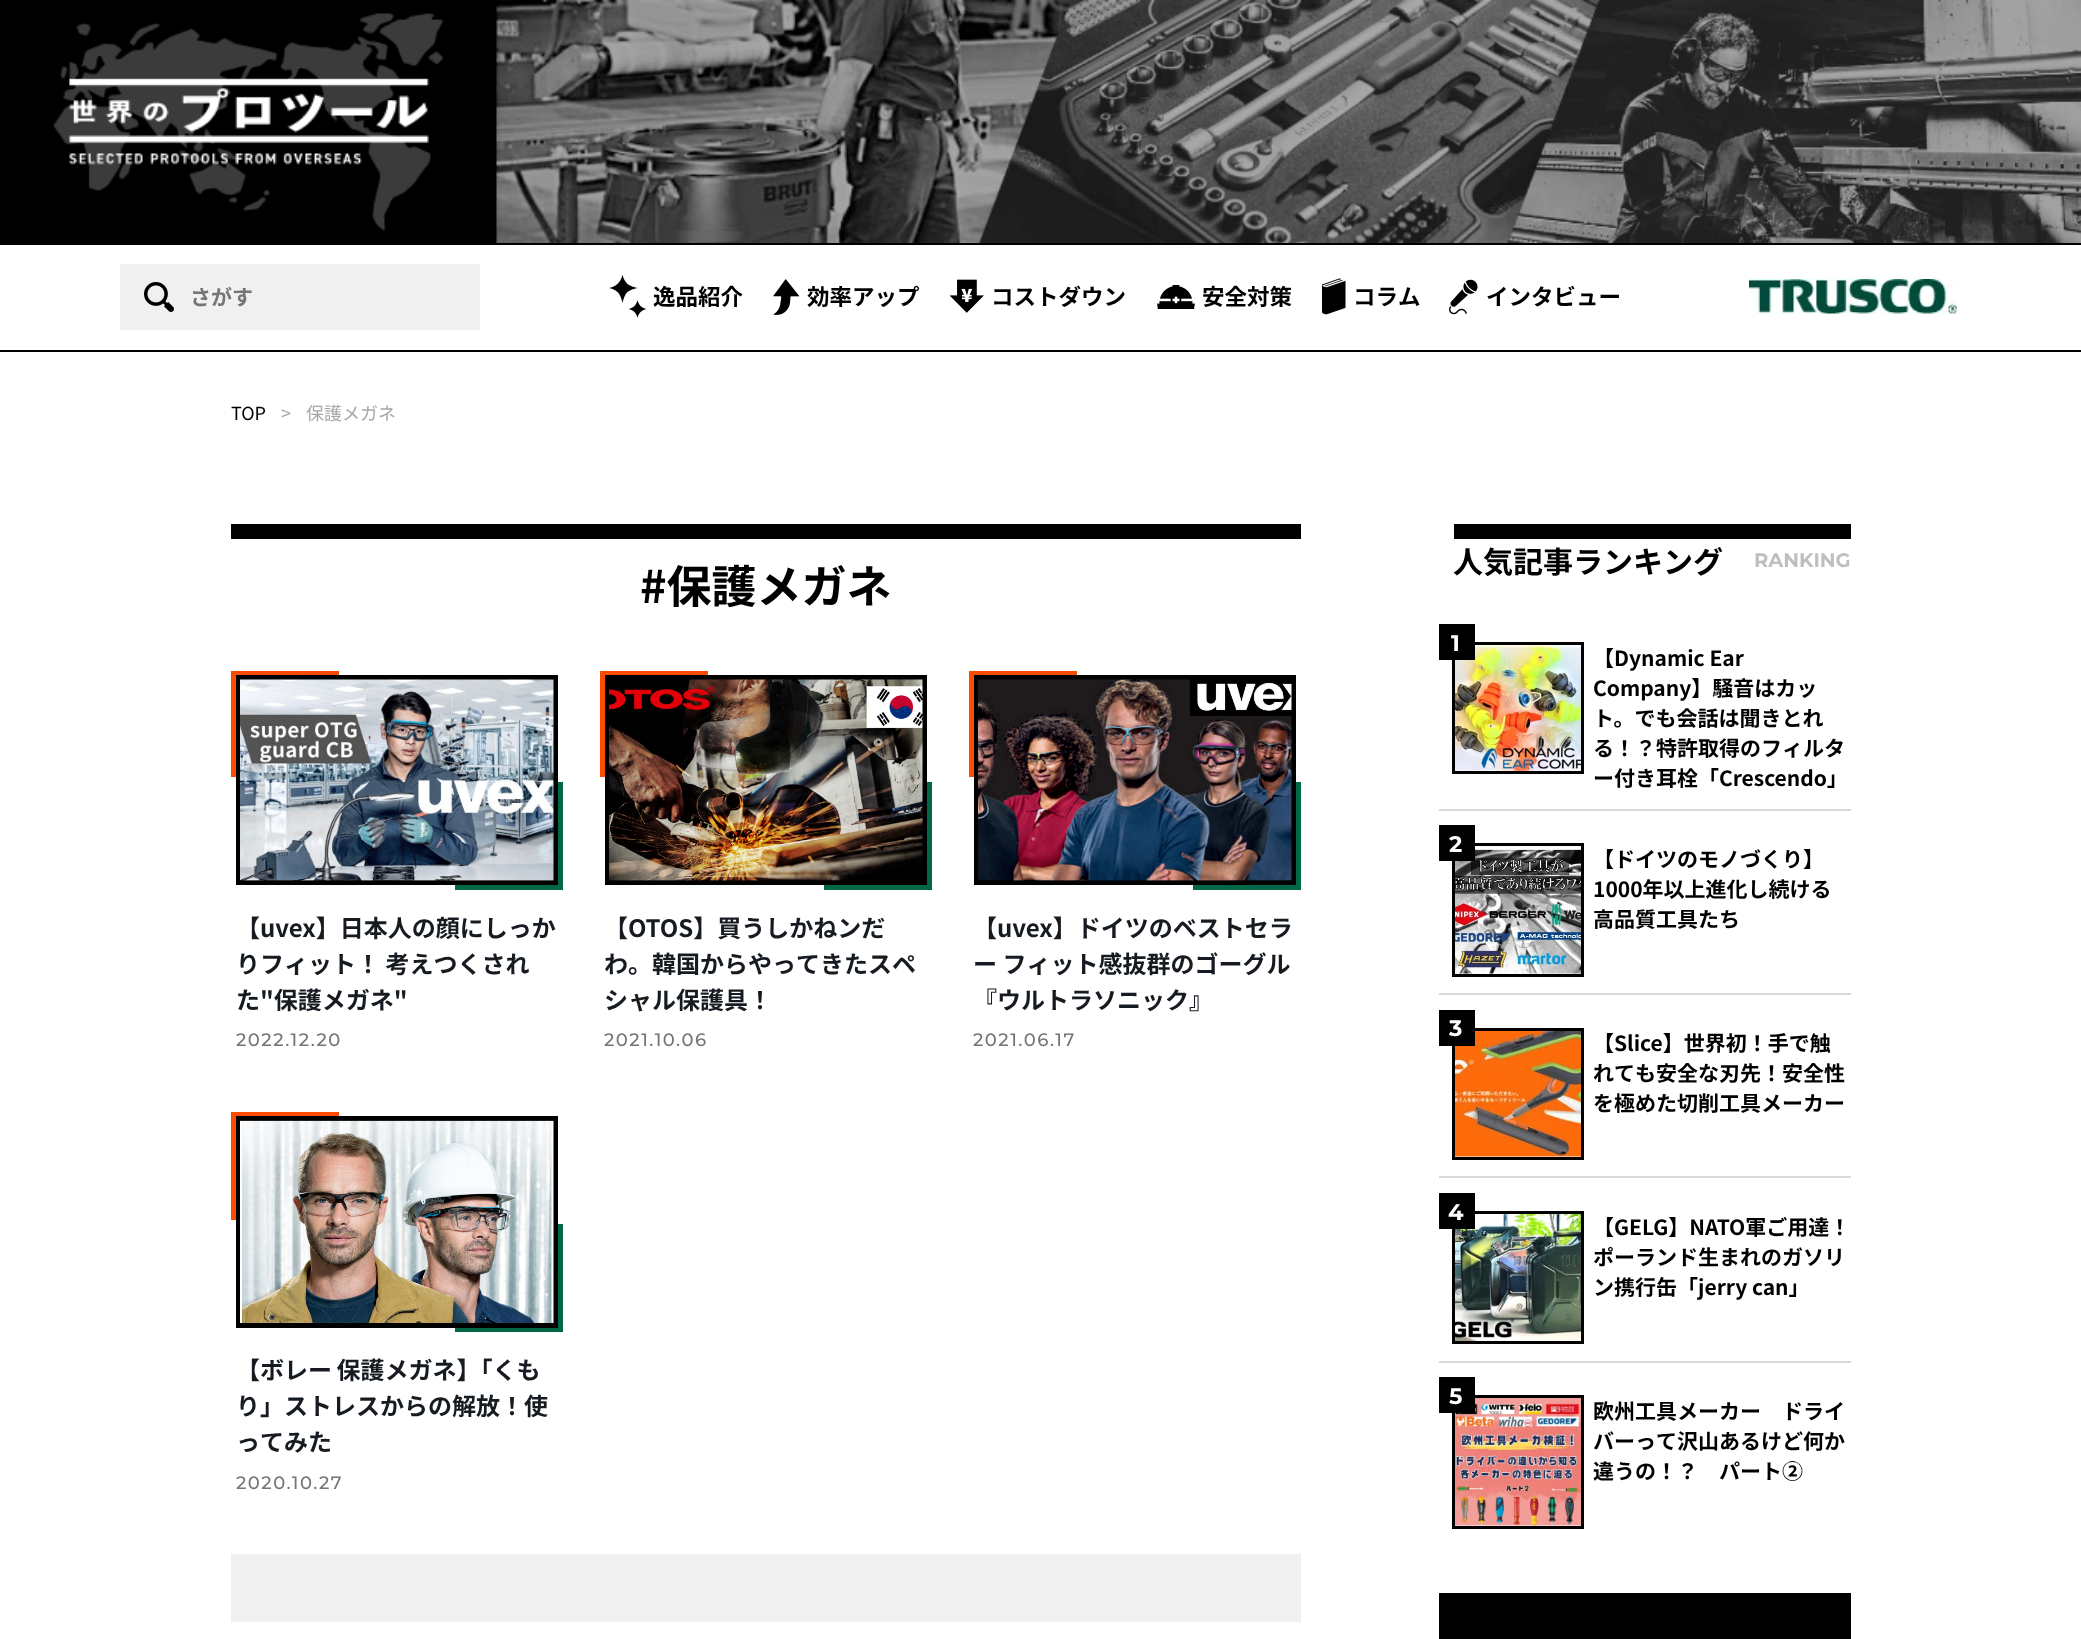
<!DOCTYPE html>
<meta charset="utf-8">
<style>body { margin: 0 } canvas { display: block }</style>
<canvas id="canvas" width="2081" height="1639"></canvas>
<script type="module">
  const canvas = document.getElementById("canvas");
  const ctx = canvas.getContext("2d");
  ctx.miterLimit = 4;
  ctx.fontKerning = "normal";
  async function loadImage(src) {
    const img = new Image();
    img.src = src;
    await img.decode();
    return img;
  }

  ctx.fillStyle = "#ffffff";
  ctx.fillRect(0, 0, 2081, 1639);
  ctx.fillStyle = "#000000";
  ctx.fillRect(0, 350, 2081, 2);
  ctx.fillRect(0, 0, 2081, 245);
  ctx.drawImage(await loadImage("img1.png"), 54, 13, 390, 218);
  ctx.drawImage(await loadImage("img2.png"), 496, 0, 1585, 243);
  ctx.fillStyle = "#f0f0f0";
  ctx.fillRect(120, 264, 360, 66);
  ctx.drawImage(await loadImage("img3.png"), 144, 282, 30, 30);
  ctx.font = "bold 21px Noto Sans JP";
  ctx.fillStyle = "#757575";
  ctx.fillText("さがす", 190, 305);
  ctx.drawImage(await loadImage("img4.png"), 609, 275, 38, 43);
  ctx.font = "bold 22.5px Noto Sans JP";
  ctx.fillStyle = "#000000";
  ctx.fillText("逸品紹介", 653, 305);
  ctx.drawImage(await loadImage("img5.png"), 773, 279, 27, 36);
  ctx.fillText("効率アップ", 807, 305);
  ctx.drawImage(await loadImage("img6.png"), 950, 279, 34, 34);
  ctx.fillText("コストダウン", 991, 305);
  ctx.drawImage(await loadImage("img7.png"), 1157, 285, 38, 24);
  ctx.fillText("安全対策", 1202, 305);
  ctx.drawImage(await loadImage("img8.png"), 1322, 278, 24, 37);
  ctx.fillText("コラム", 1353, 305);
  ctx.drawImage(await loadImage("img9.png"), 1449, 279, 29, 36);
  ctx.fillText("インタビュー", 1486, 305);
  ctx.drawImage(await loadImage("img10.png"), 1749, 279, 210, 35);
  ctx.font = "18px Noto Sans JP";
  ctx.fillText("TOP", 231, 420);
  ctx.fillStyle = "#a8a8a8";
  ctx.fillText(">", 281, 420);
  ctx.fillText("保護メガネ", 306, 420);
  ctx.fillStyle = "#000000";
  ctx.fillRect(231, 524, 1070, 15);
  ctx.font = "bold 45px Noto Sans JP";
  ctx.fillText("#保護メガネ", 640, 603);
  ctx.fillStyle = "#fc4c02";
  ctx.fillRect(231, 671, 108, 106);
  ctx.fillStyle = "#006747";
  ctx.fillRect(455, 782, 108, 108);
  ctx.strokeStyle = "#000000";
  ctx.lineWidth = 5;
  ctx.strokeRect(238.5, 677.5, 317, 205);
  ctx.drawImage(await loadImage("img11.png"), 240, 679, 314, 202);
  ctx.font = "bold 24px Noto Sans JP";
  ctx.fillStyle = "#161b21";
  ctx.fillText("【uvex】日本人の顔にしっか", 236, 937);
  ctx.fillText("りフィット！ 考えつくされ", 236, 973);
  ctx.fillText("た\"保護メガネ\"", 236, 1009);
  ctx.letterSpacing = "1.5px";
  ctx.font = "500 18px Montserrat";
  ctx.fillStyle = "#757575";
  ctx.fillText("2022.12.20", 236, 1046);
  ctx.fillStyle = "#fc4c02";
  ctx.fillRect(600, 671, 108, 106);
  ctx.fillStyle = "#006747";
  ctx.fillRect(824, 782, 108, 108);
  ctx.strokeRect(607.5, 677.5, 317, 205);
  ctx.drawImage(await loadImage("img12.png"), 609, 679, 314, 202);
  ctx.letterSpacing = "0px";
  ctx.font = "bold 24px Noto Sans JP";
  ctx.fillStyle = "#161b21";
  ctx.fillText("【OTOS】買うしかねンだ", 604, 937);
  ctx.fillText("わ。韓国からやってきたスペ", 604, 973);
  ctx.fillText("シャル保護具！", 604, 1009);
  ctx.letterSpacing = "1.5px";
  ctx.font = "500 18px Montserrat";
  ctx.fillStyle = "#757575";
  ctx.fillText("2021.10.06", 604, 1046);
  ctx.fillStyle = "#fc4c02";
  ctx.fillRect(969, 671, 108, 106);
  ctx.fillStyle = "#006747";
  ctx.fillRect(1193, 782, 108, 108);
  ctx.strokeRect(976.5, 677.5, 317, 205);
  ctx.drawImage(await loadImage("img13.png"), 978, 679, 314, 202);
  ctx.letterSpacing = "0px";
  ctx.font = "bold 24px Noto Sans JP";
  ctx.fillStyle = "#161b21";
  ctx.fillText("【uvex】ドイツのベストセラ", 973, 937);
  ctx.fillText("ー フィット感抜群のゴーグル", 973, 973);
  ctx.fillText("『ウルトラソニック』", 973, 1009);
  ctx.letterSpacing = "1.5px";
  ctx.font = "500 18px Montserrat";
  ctx.fillStyle = "#757575";
  ctx.fillText("2021.06.17", 973, 1046);
  ctx.fillStyle = "#fc4c02";
  ctx.fillRect(231, 1112, 108, 108);
  ctx.fillStyle = "#006747";
  ctx.fillRect(455, 1224, 108, 108);
  ctx.strokeRect(238.5, 1118.5, 317, 207);
  ctx.drawImage(await loadImage("img14.png"), 240, 1120, 314, 203);
  ctx.letterSpacing = "0px";
  ctx.wordSpacing = "-1px";
  ctx.font = "bold 24px Noto Sans JP";
  ctx.fillStyle = "#161b21";
  ctx.fillText("【ボレー 保護メガネ】「くも", 236, 1379);
  ctx.wordSpacing = "0px";
  ctx.fillText("り」ストレスからの解放！使", 236, 1415);
  ctx.fillText("ってみた", 236, 1451);
  ctx.letterSpacing = "1.5px";
  ctx.font = "500 18px Montserrat";
  ctx.fillStyle = "#757575";
  ctx.fillText("2020.10.27", 236, 1489);
  ctx.fillStyle = "#f0f0f0";
  ctx.fillRect(231, 1554, 1070, 68);
  ctx.fillStyle = "#000000";
  ctx.fillRect(1454, 524, 397, 15);
  ctx.letterSpacing = "0px";
  ctx.font = "bold 30px Noto Sans JP";
  ctx.fillText("人気記事ランキング", 1453, 573);
  ctx.font = "bold 19.5px Montserrat";
  ctx.fillStyle = "#bfbfbf";
  ctx.fillText("RANKING", 1754, 567);
  ctx.fillStyle = "#d9d9d9";
  ctx.fillRect(1439, 809, 412, 2);
  ctx.drawImage(await loadImage("img15.png"), 1455, 645, 126, 126);
  ctx.lineWidth = 3;
  ctx.strokeRect(1453.5, 643.5, 129, 129);
  ctx.fillStyle = "#000000";
  ctx.fillRect(1439, 624, 36, 36);
  ctx.font = "bold 22.5px Montserrat";
  ctx.fillStyle = "#ffffff";
  ctx.fillText("1", 1451, 651);
  ctx.font = "bold 21px Noto Sans JP";
  ctx.fillStyle = "#000000";
  ctx.fillText("【Dynamic Ear", 1593, 666);
  ctx.fillText("Company】騒音はカッ", 1593, 696);
  ctx.fillText("ト。でも会話は聞きとれ", 1593, 726);
  ctx.fillText("る！？特許取得のフィルタ", 1593, 756);
  ctx.fillText("ー付き耳栓「Crescendo」", 1593, 786);
  ctx.fillStyle = "#d9d9d9";
  ctx.fillRect(1439, 993, 412, 2);
  ctx.drawImage(await loadImage("img16.png"), 1455, 846, 126, 128);
  ctx.strokeRect(1453.5, 844.5, 129, 131);
  ctx.fillStyle = "#000000";
  ctx.fillRect(1439, 825, 36, 36);
  ctx.font = "bold 22.5px Montserrat";
  ctx.fillStyle = "#ffffff";
  ctx.fillText("2", 1449, 852);
  ctx.font = "bold 21px Noto Sans JP";
  ctx.fillStyle = "#000000";
  ctx.fillText("【ドイツのモノづくり】", 1593, 867);
  ctx.fillText("1000年以上進化し続ける", 1593, 897);
  ctx.fillText("高品質工具たち", 1593, 927);
  ctx.fillStyle = "#d9d9d9";
  ctx.fillRect(1439, 1176, 412, 2);
  ctx.drawImage(await loadImage("img17.png"), 1455, 1031, 126, 126);
  ctx.strokeRect(1453.5, 1029.5, 129, 129);
  ctx.fillStyle = "#000000";
  ctx.fillRect(1439, 1010, 36, 36);
  ctx.font = "bold 22.5px Montserrat";
  ctx.fillStyle = "#ffffff";
  ctx.fillText("3", 1449, 1036);
  ctx.font = "bold 21px Noto Sans JP";
  ctx.fillStyle = "#000000";
  ctx.fillText("【Slice】世界初！手で触", 1593, 1051);
  ctx.fillText("れても安全な刃先！安全性", 1593, 1081);
  ctx.fillText("を極めた切削工具メーカー", 1593, 1111);
  ctx.fillStyle = "#d9d9d9";
  ctx.fillRect(1439, 1361, 412, 2);
  ctx.drawImage(await loadImage("img18.png"), 1455, 1214, 126, 127);
  ctx.strokeRect(1453.5, 1212.5, 129, 130);
  ctx.fillStyle = "#000000";
  ctx.fillRect(1439, 1193, 36, 36);
  ctx.font = "bold 22.5px Montserrat";
  ctx.fillStyle = "#ffffff";
  ctx.fillText("4", 1448, 1220);
  ctx.font = "bold 21px Noto Sans JP";
  ctx.fillStyle = "#000000";
  ctx.fillText("【GELG】NATO軍ご用達！", 1593, 1235);
  ctx.fillText("ポーランド生まれのガソリ", 1593, 1265);
  ctx.fillText("ン携行缶「jerry can」", 1593, 1295);
  ctx.drawImage(await loadImage("img19.png"), 1455, 1398, 126, 128);
  ctx.strokeRect(1453.5, 1396.5, 129, 131);
  ctx.fillRect(1439, 1377, 36, 36);
  ctx.font = "bold 22.5px Montserrat";
  ctx.fillStyle = "#ffffff";
  ctx.fillText("5", 1449, 1404);
  ctx.font = "bold 21px Noto Sans JP";
  ctx.fillStyle = "#000000";
  ctx.fillText("欧州工具メーカー　ドライ", 1593, 1419);
  ctx.fillText("バーって沢山あるけど何か", 1593, 1449);
  ctx.fillText("違うの！？　パート②", 1593, 1479);
  ctx.fillRect(1439, 1593, 412, 46);
</script>
